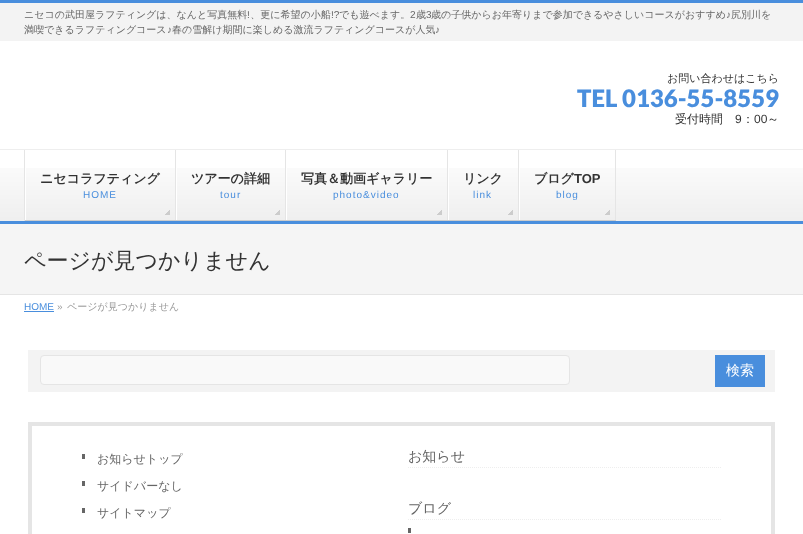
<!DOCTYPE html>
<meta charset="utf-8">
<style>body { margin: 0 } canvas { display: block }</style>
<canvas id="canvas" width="803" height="534"></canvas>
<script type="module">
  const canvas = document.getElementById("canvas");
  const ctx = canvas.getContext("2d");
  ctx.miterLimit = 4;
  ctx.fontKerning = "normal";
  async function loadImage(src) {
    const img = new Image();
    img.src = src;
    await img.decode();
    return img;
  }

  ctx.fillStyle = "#ffffff";
  ctx.fillRect(0, 0, 803, 534);
  ctx.fillStyle = "#f3f3f3";
  ctx.fillRect(0, 3, 803, 38);
  ctx.fillStyle = "#498edd";
  ctx.fillRect(0, 0, 803, 3);
  ctx.font = "500 10px WenQuanYi Zen Hei";
  ctx.fillStyle = "#666666";
  ctx.fillText("ニセコの武田屋ラフティングは、なんと写真無料 、更に希望の小船", 24, 18);
  ctx.fillText("でも遊べます。", 339, 18);
  ctx.fillText("歳", 416, 18);
  ctx.fillText("歳の子供からお年寄りまで参加できるやさしいコースがおすすめ", 431, 18);
  ctx.fillText("尻別川を", 731, 18);
  ctx.font = "10px Liberation Sans";
  ctx.fillText("!", 247, 18);
  ctx.fillText("!?", 331, 18);
  ctx.fillText("2", 410, 18);
  ctx.fillText("3", 426, 18);
  ctx.fillText("♪", 726, 18);
  ctx.font = "500 10px WenQuanYi Zen Hei";
  ctx.fillText("満喫できるラフティングコース", 24, 33);
  ctx.font = "10px Liberation Sans";
  ctx.fillText("♪", 167, 33);
  ctx.font = "500 10px WenQuanYi Zen Hei";
  ctx.fillText("春の雪解け期間に楽しめる激流ラフティングコースが人気", 172, 33);
  ctx.font = "10px Liberation Sans";
  ctx.fillText("♪", 435, 33);
  ctx.font = "500 11px WenQuanYi Zen Hei";
  ctx.fillStyle = "#333333";
  ctx.fillText("お問い合わせはこちら", 667, 82);
  ctx.font = "900 24px Lato";
  ctx.fillStyle = "#498edd";
  ctx.fillText("TEL 0136-55-8559", 577, 107);
  ctx.font = "500 12px WenQuanYi Zen Hei";
  ctx.fillStyle = "#333333";
  ctx.fillText("受付時間", 675, 123);
  ctx.font = "12px Liberation Sans";
  ctx.fillText("9", 735, 123);
  ctx.font = "500 12px WenQuanYi Zen Hei";
  ctx.fillText("：", 742, 123);
  ctx.font = "12px Liberation Sans";
  ctx.fillText("00", 754, 123);
  ctx.font = "500 12px WenQuanYi Zen Hei";
  ctx.fillText("～", 767, 123);
  ctx.drawImage(await loadImage("img1.png"), 0, 168, 803, 53);
  ctx.fillStyle = "#eeeeee";
  ctx.fillRect(0, 149, 803, 1);
  ctx.fillStyle = "#498edd";
  ctx.fillRect(0, 221, 803, 3);
  ctx.fillStyle = "#e5e5e5";
  ctx.fillRect(24, 150, 1, 71);
  ctx.fillStyle = "#ffffff";
  ctx.fillRect(25, 168, 1, 53);
  ctx.drawImage(await loadImage("img2.png"), 165, 210, 5, 5);
  ctx.fillStyle = "#e5e5e5";
  ctx.fillRect(175, 150, 1, 71);
  ctx.fillStyle = "#cccccc";
  ctx.fillRect(25, 220, 151, 1);
  ctx.font = "bold 13px WenQuanYi Zen Hei";
  ctx.fillStyle = "#333333";
  ctx.fillText("ニセコラフティング", 40, 183);
  ctx.letterSpacing = "1px";
  ctx.font = "10px Liberation Sans";
  ctx.fillStyle = "#498edd";
  ctx.fillText("HOME", 83, 198);
  ctx.fillStyle = "#ffffff";
  ctx.fillRect(176, 168, 1, 53);
  ctx.drawImage(await loadImage("img2.png"), 275, 210, 5, 5);
  ctx.fillStyle = "#e5e5e5";
  ctx.fillRect(285, 150, 1, 71);
  ctx.fillStyle = "#cccccc";
  ctx.fillRect(176, 220, 110, 1);
  ctx.letterSpacing = "0px";
  ctx.font = "bold 13px WenQuanYi Zen Hei";
  ctx.fillStyle = "#333333";
  ctx.fillText("ツアーの詳細", 191, 183);
  ctx.letterSpacing = "1px";
  ctx.font = "10px Liberation Sans";
  ctx.fillStyle = "#498edd";
  ctx.fillText("tour", 220, 198);
  ctx.fillStyle = "#ffffff";
  ctx.fillRect(286, 168, 1, 53);
  ctx.drawImage(await loadImage("img2.png"), 437, 210, 5, 5);
  ctx.fillStyle = "#e5e5e5";
  ctx.fillRect(447, 150, 1, 71);
  ctx.fillStyle = "#cccccc";
  ctx.fillRect(286, 220, 162, 1);
  ctx.letterSpacing = "0px";
  ctx.font = "bold 13px WenQuanYi Zen Hei";
  ctx.fillStyle = "#333333";
  ctx.fillText("写真＆動画ギャラリー", 301, 183);
  ctx.letterSpacing = "1px";
  ctx.font = "10px Liberation Sans";
  ctx.fillStyle = "#498edd";
  ctx.fillText("photo&video", 333, 198);
  ctx.fillStyle = "#ffffff";
  ctx.fillRect(448, 168, 1, 53);
  ctx.drawImage(await loadImage("img2.png"), 508, 210, 5, 5);
  ctx.fillStyle = "#e5e5e5";
  ctx.fillRect(518, 150, 1, 71);
  ctx.fillStyle = "#cccccc";
  ctx.fillRect(448, 220, 71, 1);
  ctx.letterSpacing = "0px";
  ctx.font = "bold 13px WenQuanYi Zen Hei";
  ctx.fillStyle = "#333333";
  ctx.fillText("リンク", 463, 183);
  ctx.letterSpacing = "1px";
  ctx.font = "10px Liberation Sans";
  ctx.fillStyle = "#498edd";
  ctx.fillText("link", 473, 198);
  ctx.fillStyle = "#ffffff";
  ctx.fillRect(519, 168, 1, 53);
  ctx.drawImage(await loadImage("img2.png"), 605, 210, 5, 5);
  ctx.fillStyle = "#e5e5e5";
  ctx.fillRect(615, 150, 1, 71);
  ctx.fillStyle = "#cccccc";
  ctx.fillRect(519, 220, 97, 1);
  ctx.letterSpacing = "0px";
  ctx.font = "bold 13px WenQuanYi Zen Hei";
  ctx.fillStyle = "#333333";
  ctx.fillText("ブログ", 534, 183);
  ctx.font = "bold 13px Liberation Sans";
  ctx.fillText("TOP", 574, 183);
  ctx.letterSpacing = "1px";
  ctx.font = "10px Liberation Sans";
  ctx.fillStyle = "#498edd";
  ctx.fillText("blog", 556, 198);
  ctx.fillStyle = "#f5f5f5";
  ctx.fillRect(0, 224, 803, 70);
  ctx.fillStyle = "#e5e5e5";
  ctx.fillRect(0, 294, 803, 1);
  ctx.letterSpacing = "0px";
  ctx.font = "500 22px WenQuanYi Zen Hei";
  ctx.fillStyle = "#333333";
  ctx.fillText("ページが見つかりません", 24, 268);
  ctx.font = "10px Liberation Sans";
  ctx.fillStyle = "#498edd";
  ctx.fillText("HOME", 24, 310);
  ctx.fillRect(24, 311, 30, 1);
  ctx.fillStyle = "#999999";
  ctx.fillText("»", 57, 310);
  ctx.font = "500 10px WenQuanYi Zen Hei";
  ctx.fillText("ページが見つかりません", 67, 310);
  ctx.fillStyle = "#f3f3f3";
  ctx.fillRect(28, 350, 747, 42);
  ctx.fillStyle = "#f9f9f9";
  ctx.beginPath();
  ctx.roundRect(40.5, 355.5, 529, 29, 3.5);
  ctx.fill();
  ctx.strokeStyle = "#e5e5e5";
  ctx.stroke();
  ctx.fillStyle = "#498edd";
  ctx.fillRect(715, 355, 50, 32);
  ctx.font = "500 14px WenQuanYi Zen Hei";
  ctx.fillStyle = "#ffffff";
  ctx.fillText("検索", 726, 375);
  ctx.lineWidth = 4;
  ctx.strokeRect(30, 424, 743, 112);
  ctx.fillStyle = "#666666";
  ctx.fillRect(82, 454, 3, 5);
  ctx.font = "500 12px WenQuanYi Zen Hei";
  ctx.fillText("お知らせトップ", 97, 463);
  ctx.fillRect(82, 481, 3, 5);
  ctx.fillText("サイドバーなし", 97, 490);
  ctx.fillRect(82, 508, 3, 5);
  ctx.fillText("サイトマップ", 97, 517);
  ctx.beginPath();
  ctx.moveTo(408, 467.5);
  ctx.lineTo(721, 467.5);
  ctx.strokeStyle = "#eeeeee";
  ctx.lineWidth = 1;
  ctx.setLineDash([1, 1]);
  ctx.stroke();
  ctx.font = "500 14px WenQuanYi Zen Hei";
  ctx.fillText("お知らせ", 408, 461);
  ctx.beginPath();
  ctx.moveTo(408, 519.5);
  ctx.lineTo(721, 519.5);
  ctx.stroke();
  ctx.fillText("ブログ", 408, 513);
  ctx.fillRect(408, 528, 3, 5);
</script>
